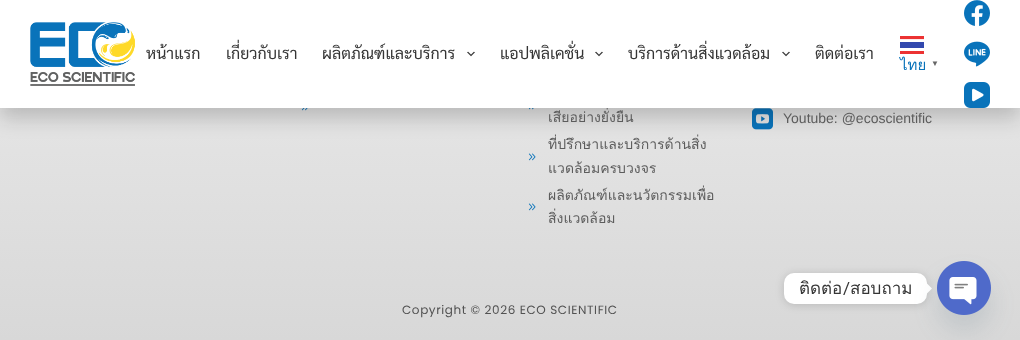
<!DOCTYPE html>
<meta charset="utf-8">
<style>body { margin: 0 } canvas { display: block }</style>
<canvas id="canvas" width="1020" height="340"></canvas>
<script type="module">
  const canvas = document.getElementById("canvas");
  const ctx = canvas.getContext("2d");
  ctx.miterLimit = 4;
  ctx.fontKerning = "normal";
  async function loadImage(src) {
    const img = new Image();
    img.src = src;
    await img.decode();
    return img;
  }
  let gradient;

  ctx.fillStyle = "#ffffff";
  ctx.fillRect(0, 0, 1020, 340);
  gradient = ctx.createLinearGradient(510, -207, 510, 340);
  gradient.addColorStop(0, "#f5f5f5");
  gradient.addColorStop(1, "#d8d8d8");
  ctx.fillStyle = gradient;
  ctx.fillRect(0, 108, 1020, 232);
  ctx.drawImage(await loadImage("img7.png"), 301, 108, 7, 3);
  ctx.drawImage(await loadImage("img8.png"), 528, 108, 6, 2);
  ctx.drawImage(await loadImage("img11.png"), 752, 108, 21, 22);
  ctx.fillStyle = "rgba(15, 15, 16, 0.2)";
  ctx.filter = "blur(10px)";
  ctx.beginPath();
  ctx.rect(0, 10, 1020, 108);
  ctx.fill();
  ctx.filter = "none";
  ctx.font = "14px Loma";
  ctx.fillStyle = "#5c5c5c";
  ctx.fillText("เสียอย่างยั่งยืน", 548, 122);
  ctx.fillStyle = "#ffffff";
  ctx.fillRect(0, 0, 1020, 108);
  ctx.drawImage(await loadImage("img1.png"), 30, 22, 105, 64);
  ctx.font = "16px Sarabun";
  ctx.fillStyle = "#353535";
  ctx.fillText("หน้าแรก", 146, 59);
  ctx.fillText("เกี่ยวกับเรา", 226, 59);
  ctx.fillText("ผลิตภัณฑ์และบริการ", 322, 59);
  ctx.drawImage(await loadImage("img2.png"), 467, 51, 8, 6);
  ctx.fillText("แอปพลิเคชั่น", 500, 59);
  ctx.drawImage(await loadImage("img2.png"), 595, 51, 8, 6);
  ctx.fillText("บริการด้านสิ่งแวดล้อม", 628, 59);
  ctx.drawImage(await loadImage("img2.png"), 782, 51, 8, 6);
  ctx.fillText("ติดต่อเรา", 815, 59);
  ctx.drawImage(await loadImage("img3.png"), 900, 36, 24, 18);
  ctx.font = "15px Loma";
  ctx.fillStyle = "#0973ba";
  ctx.fillText("ไทย", 900, 70);
  ctx.font = "bold 8px Liberation Sans";
  ctx.fillStyle = "#666666";
  ctx.fillText("▼", 931, 66);
  ctx.drawImage(await loadImage("img4.png"), 964, 0, 26, 26);
  ctx.drawImage(await loadImage("img5.png"), 964, 41, 26, 26);
  ctx.drawImage(await loadImage("img6.png"), 964, 82, 26, 26);
  ctx.drawImage(await loadImage("img9.png"), 528, 153, 8, 8);
  ctx.font = "14px Loma";
  ctx.fillStyle = "#5c5c5c";
  ctx.fillText("ที่ปรึกษาและบริการด้านสิ่ง", 548, 149);
  ctx.fillText("แวดล้อมครบวงจร", 548, 173);
  ctx.drawImage(await loadImage("img10.png"), 528, 203, 8, 8);
  ctx.fillText("ผลิตภัณฑ์และนวัตกรรมเพื่อ", 548, 200);
  ctx.fillText("สิ่งแวดล้อม", 548, 223);
  ctx.font = "14px Liberation Sans";
  ctx.fillText("Youtube: @ecoscientific", 783, 123);
  ctx.letterSpacing = "0.6px";
  ctx.font = "12px Poppins";
  ctx.fillStyle = "#525252";
  ctx.fillText("Copyright © 2026 ECO SCIENTIFIC", 402, 314);
  ctx.fillStyle = "rgba(0, 0, 0, 0.15)";
  ctx.filter = "blur(4px)";
  ctx.beginPath();
  ctx.roundRect(784, 274, 143, 31, 10);
  ctx.fill();
  ctx.filter = "none";
  ctx.fillStyle = "#ffffff";
  ctx.beginPath();
  ctx.roundRect(784, 273, 143, 31, 10);
  ctx.fill();
  ctx.letterSpacing = "0px";
  ctx.font = "17px Loma";
  ctx.fillStyle = "#353535";
  ctx.fillText("ติดต่อ", 799, 294);
  ctx.font = "17px Roboto";
  ctx.fillText("/", 843, 294);
  ctx.font = "17px Loma";
  ctx.fillText("สอบถาม", 850, 294);
  ctx.fillStyle = "#ffffff";
  ctx.beginPath();
  ctx.moveTo(927, 293.5);
  ctx.lineTo(927, 283.5);
  ctx.lineTo(932, 288.5);
  ctx.closePath();
  ctx.fill();
  ctx.fillStyle = "rgba(73, 104, 126, 0.16)";
  ctx.filter = "blur(12px)";
  ctx.beginPath();
  ctx.roundRect(937, 277, 54, 54, 27);
  ctx.fill();
  ctx.filter = "none";
  ctx.drawImage(await loadImage("img12.png"), 937, 261, 54, 54);
</script>
